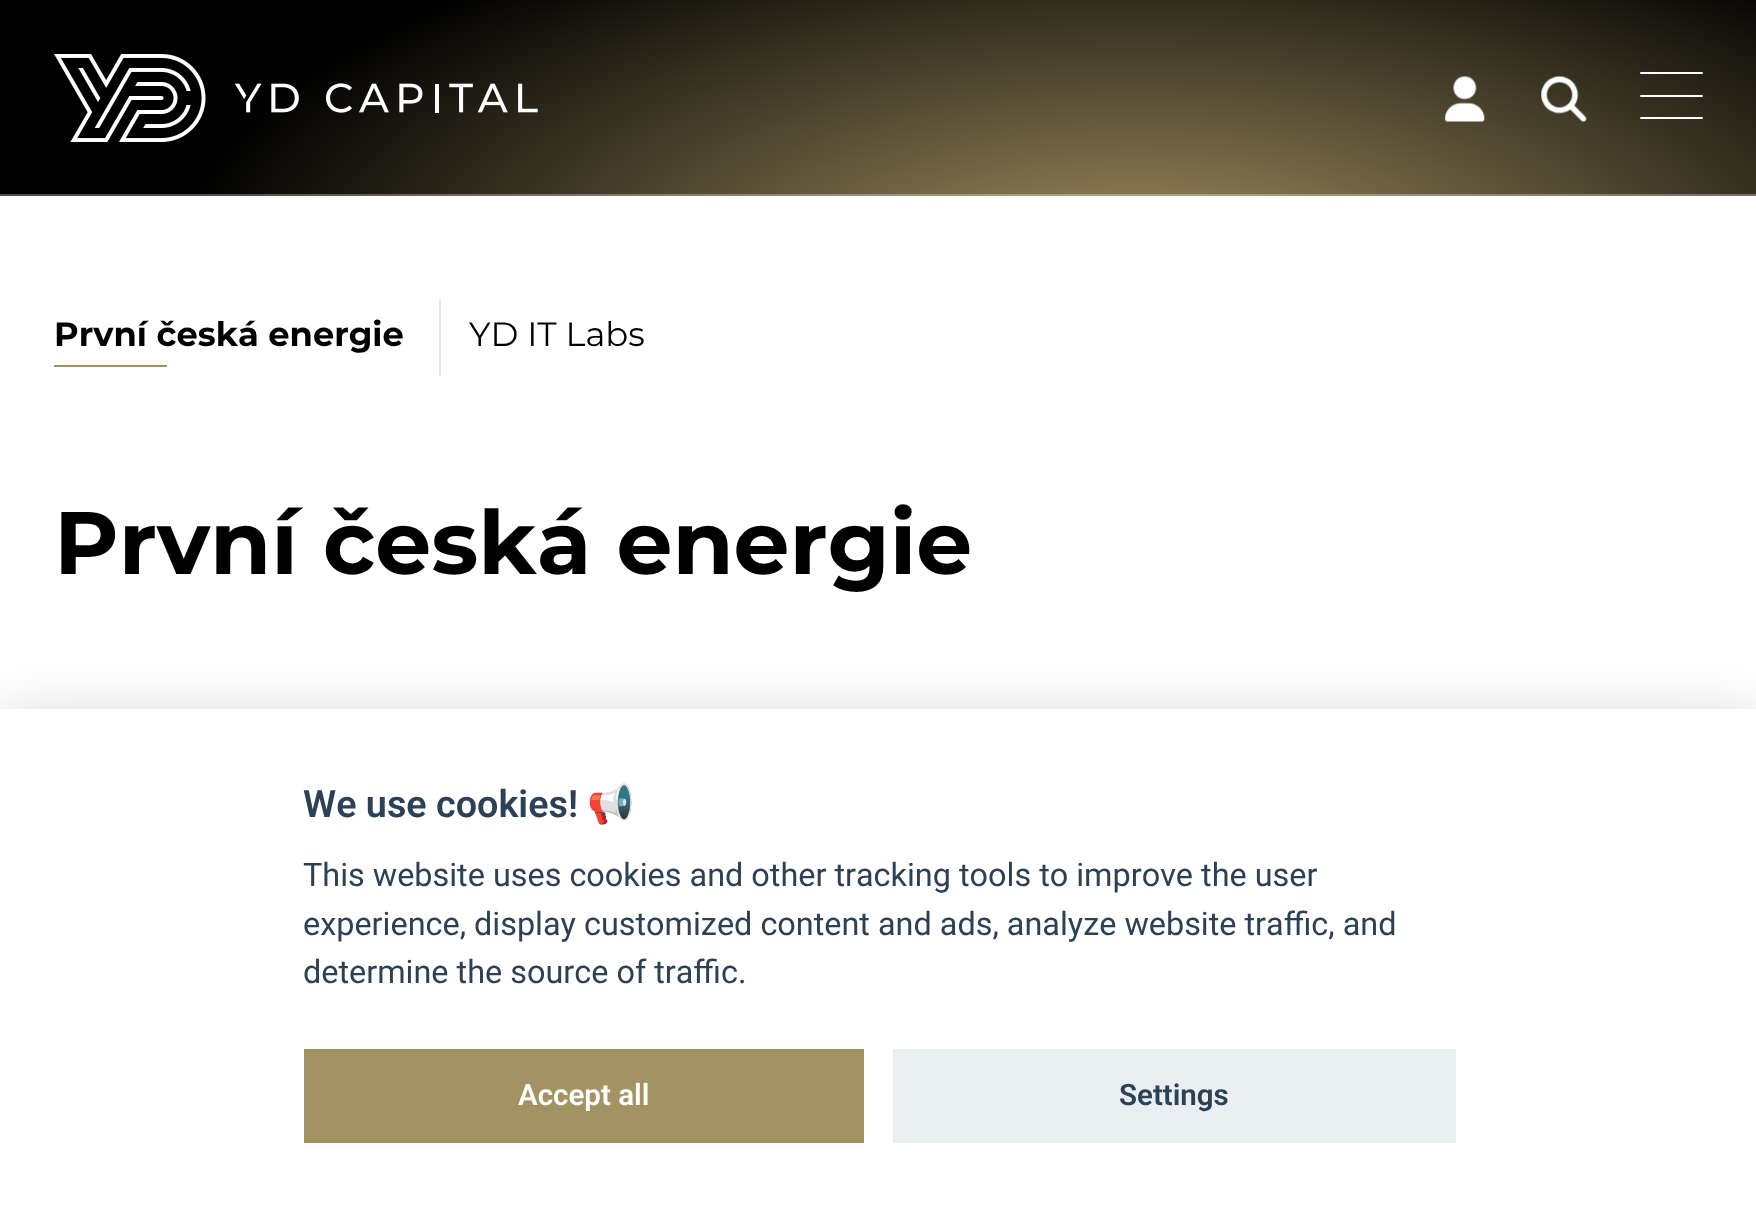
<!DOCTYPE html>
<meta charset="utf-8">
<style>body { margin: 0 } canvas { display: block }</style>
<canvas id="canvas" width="1756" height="1213"></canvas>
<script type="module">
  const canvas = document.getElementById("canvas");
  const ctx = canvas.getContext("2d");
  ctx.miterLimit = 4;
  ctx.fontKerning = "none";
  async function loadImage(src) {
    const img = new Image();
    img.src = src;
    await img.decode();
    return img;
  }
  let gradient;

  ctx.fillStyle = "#ffffff";
  ctx.fillRect(0, 0, 1756, 1213);
  gradient = ctx.createRadialGradient(1135, 677.31, 0, 1135, 677.31, 969);
  gradient.addColorStop(0, "#a49362");
  gradient.addColorStop(1, "#000000");
  ctx.fillStyle = gradient;
  ctx.beginPath();
  ctx.rect(0, 0, 1756, 194);
  ctx.save();
  ctx.clip();
  ctx.scale(1, 392 / 969);
  ctx.fillRect(0, 0, 1756, 2999);
  ctx.restore();
  gradient = ctx.createRadialGradient(1135, 677.31, 0, 1135, 677.31, 969);
  gradient.addColorStop(0, "#bfb391");
  gradient.addColorStop(1, "#4d4d4d");
  ctx.fillStyle = gradient;
  ctx.beginPath();
  ctx.rect(0, 194, 1756, 2);
  ctx.save();
  ctx.clip();
  ctx.scale(1, 392 / 969);
  ctx.fillRect(0, 0, 1756, 2999);
  ctx.restore();
  ctx.drawImage(await loadImage("img1.png"), 54, 54, 484, 88);
  ctx.drawImage(await loadImage("img2.png"), 1444, 76, 42, 46);
  ctx.drawImage(await loadImage("img3.png"), 1541, 76, 46, 46);
  ctx.fillStyle = "#ffffff";
  ctx.beginPath();
  ctx.roundRect(1640, 72, 63, 2, 1);
  ctx.fill();
  ctx.beginPath();
  ctx.roundRect(1640, 95, 63, 2, 1);
  ctx.fill();
  ctx.beginPath();
  ctx.roundRect(1640, 117, 63, 2, 1);
  ctx.fill();
  ctx.font = "bold 33.75px Montserrat";
  ctx.fillStyle = "#000000";
  ctx.fillText("První česká energie", 54, 346);
  ctx.fillStyle = "#a49362";
  ctx.fillRect(54, 365, 113, 2);
  ctx.fillStyle = "#e5e7eb";
  ctx.fillRect(439, 299, 2, 77);
  ctx.font = "33.75px Montserrat";
  ctx.fillStyle = "#000000";
  ctx.fillText("YD IT Labs", 469, 346);
  ctx.font = "bold 88.6px Montserrat";
  ctx.fillText("První česká energie", 54, 574);
  ctx.fillStyle = "rgba(2, 2, 3, 0.28)";
  ctx.filter = "blur(34px)";
  ctx.beginPath();
  ctx.rect(0, 731, 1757, 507);
  ctx.fill();
  ctx.filter = "none";
  ctx.fillStyle = "#ffffff";
  ctx.fillRect(0, 709, 1756, 504);
  ctx.font = "600 37.75px Roboto";
  ctx.fillStyle = "#2d4156";
  ctx.fillText("We use cookies!", 303, 817);
  ctx.font = "bold 37.75px Noto Color Emoji";
  ctx.fillText("📢", 587, 817);
  ctx.font = "32.4px Roboto";
  ctx.fillText("This website uses cookies and other tracking tools to improve the user", 303, 886);
  ctx.fillText("experience, display customized content and ads, analyze website traffic, and", 303, 935);
  ctx.fillText("determine the source of traffic.", 303, 983);
  ctx.fillStyle = "#a49362";
  ctx.fillRect(304, 1049, 560, 94);
  ctx.font = "600 29.5px Roboto";
  ctx.fillStyle = "#ffffff";
  ctx.fillText("Accept all", 518, 1105);
  ctx.fillStyle = "#eaeff2";
  ctx.fillRect(893, 1049, 563, 94);
  ctx.fillStyle = "#2d4156";
  ctx.fillText("Settings", 1119, 1105);
</script>
